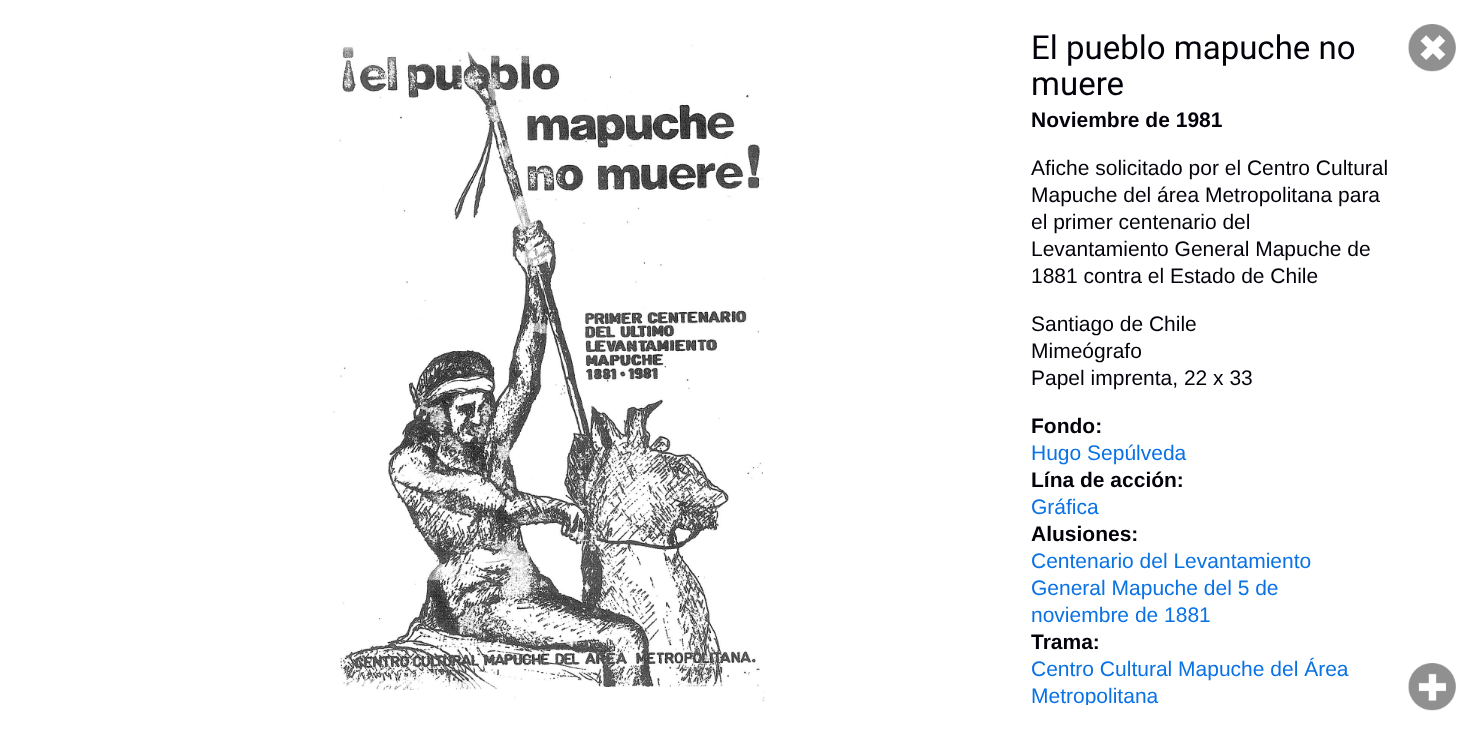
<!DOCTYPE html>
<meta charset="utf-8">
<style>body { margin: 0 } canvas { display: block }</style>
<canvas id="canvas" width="1480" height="735"></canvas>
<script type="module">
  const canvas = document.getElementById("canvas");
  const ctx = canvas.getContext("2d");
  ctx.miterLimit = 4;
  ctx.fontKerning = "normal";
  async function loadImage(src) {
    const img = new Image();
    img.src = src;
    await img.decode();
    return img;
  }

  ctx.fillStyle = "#ffffff";
  ctx.fillRect(0, 0, 1480, 735);
  ctx.drawImage(await loadImage("img1.png"), 333, 44, 433, 658);
  ctx.font = "33px Roboto";
  ctx.fillStyle = "#03020a";
  ctx.fillText("El pueblo mapuche no", 1031, 59);
  ctx.fillText("muere", 1031, 95);
  ctx.font = "bold 21px Liberation Sans";
  ctx.fillText("Noviembre de 1981", 1031, 127);
  ctx.font = "21px Liberation Sans";
  ctx.fillText("Afiche solicitado por el Centro Cultural", 1031, 175);
  ctx.fillText("Mapuche del área Metropolitana para", 1031, 202);
  ctx.fillText("el primer centenario del", 1031, 229);
  ctx.fillText("Levantamiento General Mapuche de", 1031, 256);
  ctx.fillText("1881 contra el Estado de Chile", 1031, 283);
  ctx.fillText("Santiago de Chile", 1031, 331);
  ctx.fillText("Mimeógrafo", 1031, 358);
  ctx.fillText("Papel imprenta, 22 x 33", 1031, 385);
  ctx.font = "bold 21px Liberation Sans";
  ctx.fillText("Fondo:", 1031, 433);
  ctx.font = "21px Liberation Sans";
  ctx.fillStyle = "#0a72e4";
  ctx.fillText("Hugo Sepúlveda", 1031, 460);
  ctx.font = "bold 21px Liberation Sans";
  ctx.fillStyle = "#03020a";
  ctx.fillText("Lína de acción:", 1031, 487);
  ctx.font = "21px Liberation Sans";
  ctx.fillStyle = "#0a72e4";
  ctx.fillText("Gráfica", 1031, 514);
  ctx.font = "bold 21px Liberation Sans";
  ctx.fillStyle = "#03020a";
  ctx.fillText("Alusiones:", 1031, 541);
  ctx.font = "21px Liberation Sans";
  ctx.fillStyle = "#0a72e4";
  ctx.fillText("Centenario del Levantamiento", 1031, 568);
  ctx.fillText("General Mapuche del 5 de", 1031, 595);
  ctx.fillText("noviembre de 1881", 1031, 622);
  ctx.save();
  ctx.beginPath();
  ctx.rect(1031, 30, 360, 675);
  ctx.clip();
  ctx.font = "bold 21px Liberation Sans";
  ctx.fillStyle = "#03020a";
  ctx.fillText("Trama:", 1031, 649);
  ctx.restore();
  ctx.fillText("Centro Cultural Mapuche del Área", 1031, 676);
  ctx.save();
  ctx.beginPath();
  ctx.rect(1031, 30, 360, 675);
  ctx.clip();
  ctx.fillText("Metropolitana", 1031, 703);
  ctx.restore();
  ctx.drawImage(await loadImage("img2.png"), 1408, 24, 48, 48);
  ctx.drawImage(await loadImage("img3.png"), 1408, 663, 48, 48);
</script>
